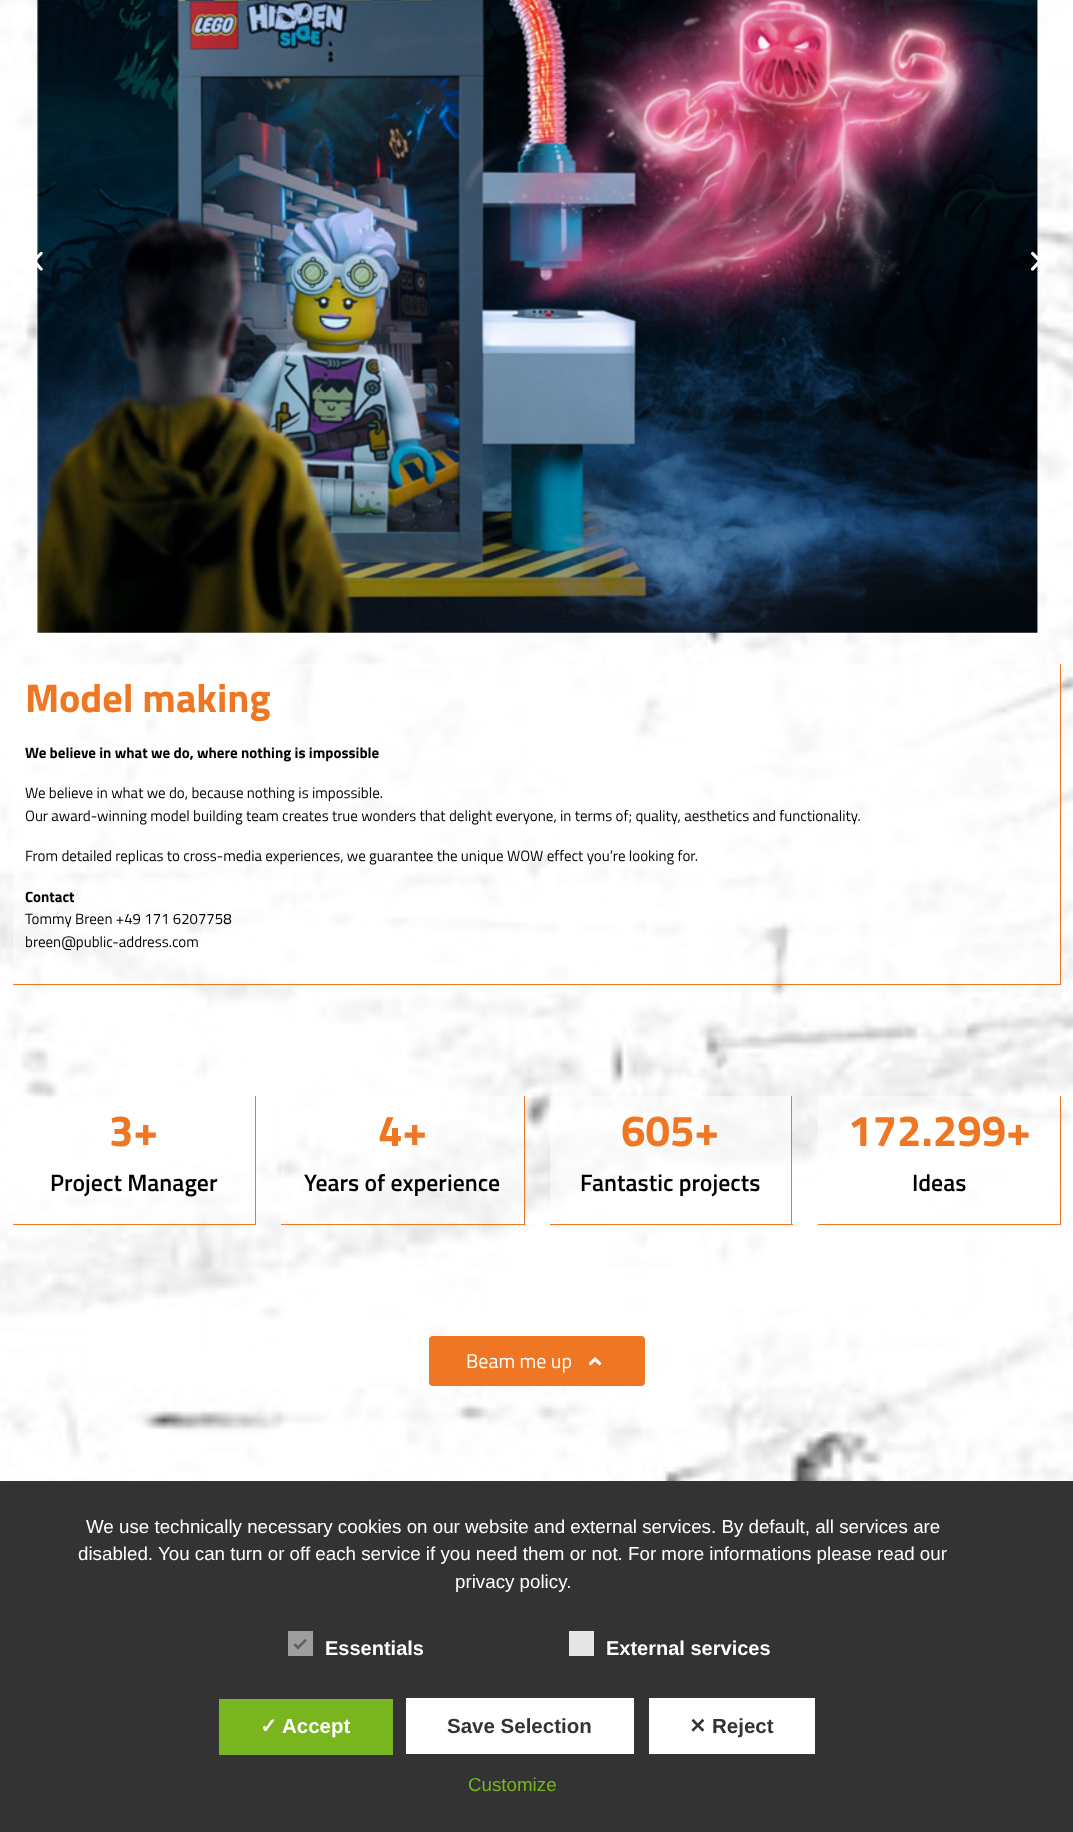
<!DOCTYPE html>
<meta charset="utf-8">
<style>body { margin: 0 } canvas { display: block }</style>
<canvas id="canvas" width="1073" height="1832"></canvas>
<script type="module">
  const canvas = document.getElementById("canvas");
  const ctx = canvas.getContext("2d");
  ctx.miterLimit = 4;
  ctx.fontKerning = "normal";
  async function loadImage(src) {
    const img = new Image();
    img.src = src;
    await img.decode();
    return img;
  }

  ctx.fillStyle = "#ffffff";
  ctx.fillRect(0, 0, 1073, 1832);
  ctx.drawImage(await loadImage("img1.png"), 0, 0, 1073, 1481);
  ctx.drawImage(await loadImage("img2.png"), 37, 0, 1001, 633);
  ctx.drawImage(await loadImage("img3.png"), 37, 251, 6, 20);
  ctx.drawImage(await loadImage("img4.png"), 1031, 251, 7, 20);
  ctx.fillStyle = "#ef7723";
  ctx.fillRect(1060, 664, 1, 321);
  ctx.fillRect(13, 984, 1048, 1);
  ctx.fillStyle = "rgba(255, 255, 255, 0.51)";
  ctx.fillRect(13, 664, 1047, 320);
  ctx.font = "bold 40px Titillium Web";
  ctx.fillStyle = "#ef7723";
  ctx.fillText("Model making", 25, 712);
  ctx.font = "bold 15px Titillium Web";
  ctx.fillStyle = "#000000";
  ctx.fillText("We believe in what we do, where nothing is impossible", 25, 758);
  ctx.font = "15px Titillium Web";
  ctx.fillText("We believe in what we do, because nothing is impossible.", 25, 798);
  ctx.fillText("Our award-winning model building team creates true wonders that delight everyone, in terms of; quality, aesthetics and functionality.", 25, 821);
  ctx.fillText("From detailed replicas to cross-media experiences, we guarantee the unique WOW effect you’re looking for.", 25, 861);
  ctx.font = "bold 15px Titillium Web";
  ctx.fillText("Contact", 25, 902);
  ctx.font = "15px Titillium Web";
  ctx.fillText("Tommy Breen +49 171 6207758", 25, 924);
  ctx.fillText("breen@public-address.com", 25, 947);
  ctx.fillStyle = "#ef7723";
  ctx.fillRect(255, 1096, 1, 129);
  ctx.fillRect(13, 1224, 243, 1);
  ctx.fillStyle = "rgba(255, 255, 255, 0.5)";
  ctx.fillRect(30, 1096, 225, 128);
  ctx.font = "bold 43.75px Titillium Web";
  ctx.fillStyle = "#ef7723";
  ctx.fillText("3+", 109, 1146);
  ctx.font = "600 23.75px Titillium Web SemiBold";
  ctx.fillStyle = "#000000";
  ctx.fillText("Project Manager", 50, 1191);
  ctx.fillStyle = "#ef7723";
  ctx.fillRect(524, 1096, 1, 129);
  ctx.fillRect(281, 1224, 244, 1);
  ctx.fillStyle = "rgba(255, 255, 255, 0.5)";
  ctx.fillRect(281, 1096, 243, 128);
  ctx.font = "bold 43.75px Titillium Web";
  ctx.fillStyle = "#ef7723";
  ctx.fillText("4+", 378, 1146);
  ctx.font = "600 23.75px Titillium Web SemiBold";
  ctx.fillStyle = "#000000";
  ctx.fillText("Years of experience", 304, 1191);
  ctx.fillStyle = "#ef7723";
  ctx.fillRect(791, 1096, 1, 129);
  ctx.fillRect(550, 1224, 243, 1);
  ctx.fillStyle = "rgba(255, 255, 255, 0.5)";
  ctx.fillRect(550, 1096, 241, 110);
  ctx.font = "bold 43.75px Titillium Web";
  ctx.fillStyle = "#ef7723";
  ctx.fillText("605+", 621, 1146);
  ctx.font = "600 23.75px Titillium Web SemiBold";
  ctx.fillStyle = "#000000";
  ctx.fillText("Fantastic projects", 580, 1191);
  ctx.fillStyle = "#ef7723";
  ctx.fillRect(1060, 1096, 1, 129);
  ctx.fillRect(818, 1224, 243, 1);
  ctx.fillStyle = "rgba(255, 255, 255, 0.5)";
  ctx.fillRect(818, 1096, 242, 52);
  ctx.font = "bold 43.75px Titillium Web";
  ctx.fillStyle = "#ef7723";
  ctx.fillText("172.299+", 848, 1146);
  ctx.font = "600 23.75px Titillium Web SemiBold";
  ctx.fillStyle = "#000000";
  ctx.fillText("Ideas", 912, 1191);
  ctx.fillStyle = "#ef7723";
  ctx.beginPath();
  ctx.roundRect(429, 1336, 216, 50, 4);
  ctx.fill();
  ctx.font = "20px Titillium Web";
  ctx.fillStyle = "#ffffff";
  ctx.fillText("Beam me up", 466, 1368);
  ctx.drawImage(await loadImage("img5.png"), 588, 1357, 14, 9);
  ctx.fillStyle = "#333333";
  ctx.fillRect(0, 1481, 1073, 351);
  ctx.font = "18.75px Liberation Sans";
  ctx.fillStyle = "#ffffff";
  ctx.fillText("We use technically necessary cookies on our website and external services. By default, all services are", 86, 1533);
  ctx.fillText("disabled. You can turn or off each service if you need them or not. For more informations please read our", 78, 1560);
  ctx.fillText("privacy policy.", 455, 1588);
  ctx.fillStyle = "#9e9e9e";
  ctx.fillRect(288, 1631, 25, 25);
  ctx.fillStyle = "#5e5e5e";
  ctx.beginPath();
  ctx.moveTo(305, 1639);
  ctx.lineTo(307, 1640.5);
  ctx.lineTo(298, 1649.5);
  ctx.lineTo(296.5, 1647.5);
  ctx.closePath();
  ctx.fill();
  ctx.beginPath();
  ctx.moveTo(295.5, 1643.5);
  ctx.lineTo(300, 1647.5);
  ctx.lineTo(298, 1649.5);
  ctx.lineTo(293.5, 1645);
  ctx.closePath();
  ctx.fill();
  ctx.font = "bold 20px Liberation Sans";
  ctx.fillStyle = "#ffffff";
  ctx.fillText("Essentials", 325, 1655);
  ctx.fillStyle = "#e6e6e6";
  ctx.fillRect(569, 1631, 25, 25);
  ctx.fillStyle = "#ffffff";
  ctx.fillText("External services", 606, 1655);
  ctx.fillStyle = "#79b51f";
  ctx.fillRect(219, 1699, 174, 56);
  ctx.font = "bold 20.5px DejaVu Sans";
  ctx.fillStyle = "#ffffff";
  ctx.fillText("✓", 260, 1733);
  ctx.font = "bold 20.5px Liberation Sans";
  ctx.fillText("Accept", 282, 1733);
  ctx.fillRect(406, 1698, 228, 56);
  ctx.fillStyle = "#333333";
  ctx.fillText("Save Selection", 447, 1733);
  ctx.fillStyle = "#ffffff";
  ctx.fillRect(649, 1698, 166, 56);
  ctx.font = "bold 20.5px DejaVu Sans";
  ctx.fillStyle = "#333333";
  ctx.fillText("✕", 689, 1733);
  ctx.font = "bold 20.5px Liberation Sans";
  ctx.fillText("Reject", 712, 1733);
  ctx.font = "18.75px Liberation Sans";
  ctx.fillStyle = "#79b51f";
  ctx.fillText("Customize", 468, 1791);
</script>
